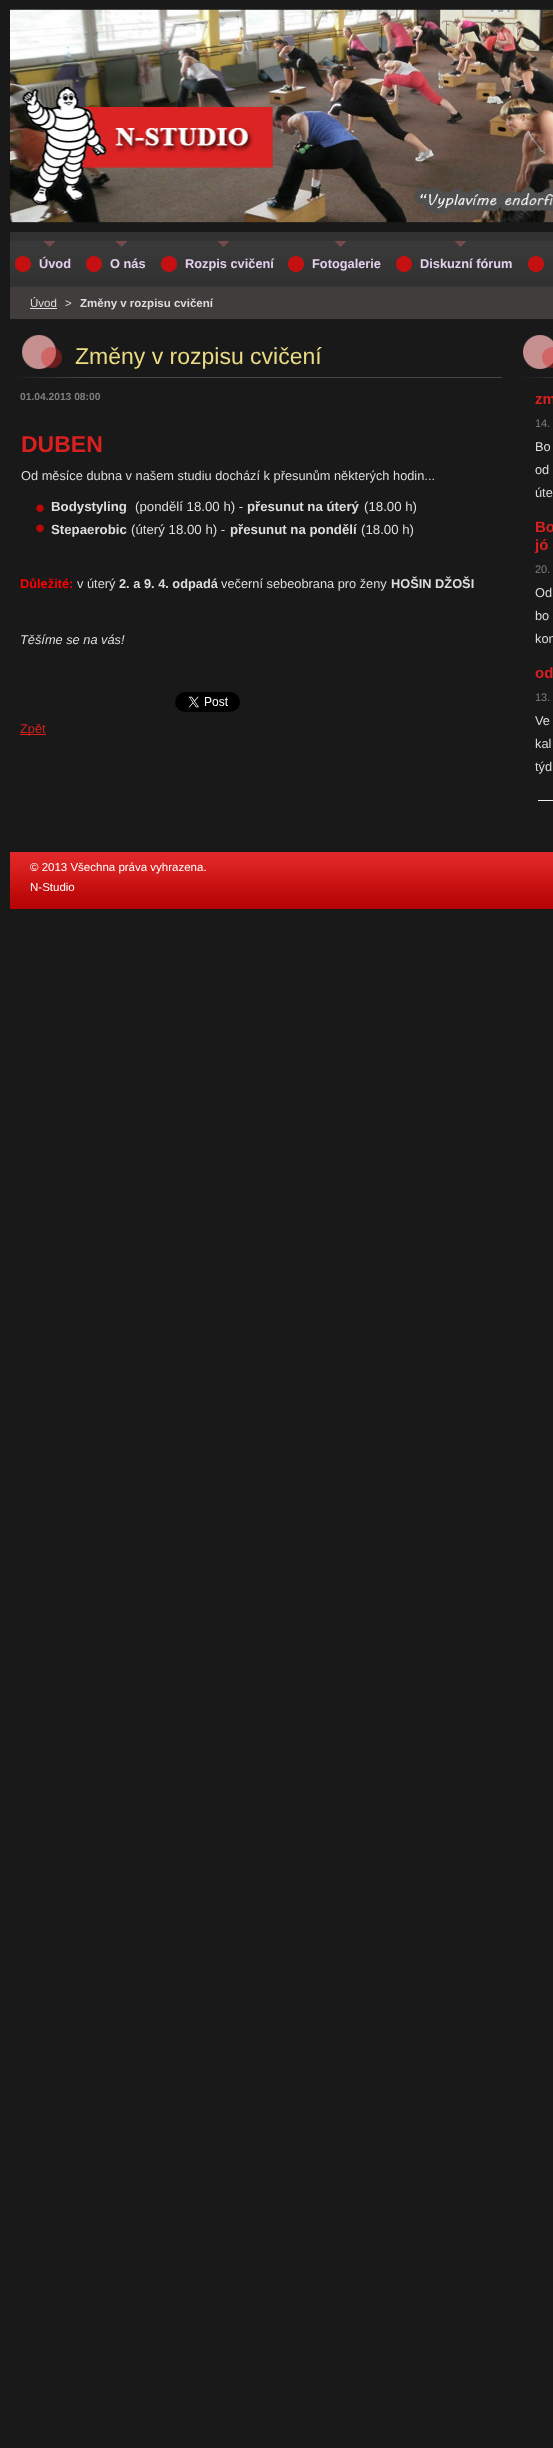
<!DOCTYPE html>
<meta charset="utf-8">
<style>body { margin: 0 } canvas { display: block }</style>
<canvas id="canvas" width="553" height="2448"></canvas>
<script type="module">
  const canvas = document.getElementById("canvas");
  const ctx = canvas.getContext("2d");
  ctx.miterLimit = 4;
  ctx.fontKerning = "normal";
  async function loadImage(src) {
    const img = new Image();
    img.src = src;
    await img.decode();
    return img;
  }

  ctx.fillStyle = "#191919";
  ctx.fillRect(0, 0, 553, 2448);
  ctx.fillStyle = "#313131";
  ctx.fillRect(10, 232, 543, 8);
  ctx.drawImage(await loadImage("img1.png"), 10, 8, 543, 216);
  ctx.drawImage(await loadImage("img2.png"), 10, 241, 543, 45);
  ctx.fillStyle = "#343434";
  ctx.fillRect(10, 240, 543, 1);
  ctx.fillStyle = "#323537";
  ctx.fillRect(10, 286, 543, 1);
  ctx.drawImage(await loadImage("img3.png"), 15, 256, 16, 16);
  ctx.drawImage(await loadImage("img4.png"), 44, 241, 11, 6);
  ctx.font = "bold 12.8px Liberation Sans";
  ctx.fillStyle = "#e2d0ec";
  ctx.fillText("Úvod", 39, 268);
  ctx.drawImage(await loadImage("img3.png"), 86, 256, 16, 16);
  ctx.drawImage(await loadImage("img4.png"), 116, 241, 11, 6);
  ctx.fillText("O nás", 110, 268);
  ctx.drawImage(await loadImage("img3.png"), 161, 256, 16, 16);
  ctx.drawImage(await loadImage("img4.png"), 218, 241, 11, 6);
  ctx.fillText("Rozpis cvičení", 185, 268);
  ctx.drawImage(await loadImage("img3.png"), 288, 256, 16, 16);
  ctx.drawImage(await loadImage("img4.png"), 335, 241, 11, 6);
  ctx.fillText("Fotogalerie", 312, 268);
  ctx.drawImage(await loadImage("img3.png"), 396, 256, 16, 16);
  ctx.drawImage(await loadImage("img4.png"), 455, 241, 11, 6);
  ctx.fillText("Diskuzní fórum", 420, 268);
  ctx.drawImage(await loadImage("img3.png"), 528, 256, 16, 16);
  ctx.fillStyle = "#413d3d";
  ctx.fillRect(10, 287, 543, 32);
  ctx.font = "11.5px Liberation Sans";
  ctx.fillStyle = "#dddddd";
  ctx.fillText("Úvod", 30, 307);
  ctx.fillRect(30, 308, 27, 1);
  ctx.fillText(">", 65, 307);
  ctx.font = "bold 11.5px Liberation Sans";
  ctx.fillText("Změny v rozpisu cvičení", 80, 307);
  ctx.drawImage(await loadImage("img5.png"), 18, 335, 484, 43);
  ctx.font = "23px Liberation Sans";
  ctx.fillStyle = "#ebdb84";
  ctx.fillText("Změny v rozpisu cvičení", 75, 364);
  ctx.font = "bold 10.25px Liberation Sans";
  ctx.fillStyle = "#7f7f7f";
  ctx.fillText("01.04.2013 08:00", 20, 400);
  ctx.font = "bold 23px Liberation Sans";
  ctx.fillStyle = "#d82020";
  ctx.fillText("DUBEN", 21, 452);
  ctx.font = "12.8px Liberation Sans";
  ctx.fillStyle = "#dddddd";
  ctx.fillText("Od měsíce dubna v našem studiu dochází k přesunům některých hodin...", 21, 480);
  ctx.drawImage(await loadImage("img6.png"), 36, 504, 8, 8);
  ctx.font = "bold 13.25px Liberation Sans";
  ctx.fillText("Bodystyling", 51, 511);
  ctx.font = "13.25px Liberation Sans";
  ctx.fillText("(pondělí 18.00 h) -", 135, 511);
  ctx.font = "bold 13.25px Liberation Sans";
  ctx.fillText("přesunut na úterý", 247, 511);
  ctx.font = "13.25px Liberation Sans";
  ctx.fillText("(18.00 h)", 364, 511);
  ctx.drawImage(await loadImage("img6.png"), 36, 524, 8, 8);
  ctx.font = "bold 13.25px Liberation Sans";
  ctx.fillText("Stepaerobic", 51, 534);
  ctx.font = "13.25px Liberation Sans";
  ctx.fillText("(úterý 18.00 h) -", 131, 534);
  ctx.font = "bold 13.25px Liberation Sans";
  ctx.fillText("přesunut na pondělí", 230, 534);
  ctx.font = "13.25px Liberation Sans";
  ctx.fillText("(18.00 h)", 361, 534);
  ctx.font = "bold 12.8px Liberation Sans";
  ctx.fillStyle = "#ff0000";
  ctx.fillText("Důležité:", 20, 588);
  ctx.font = "12.8px Liberation Sans";
  ctx.fillStyle = "#dddddd";
  ctx.fillText("v úterý", 77, 588);
  ctx.font = "bold 12.8px Liberation Sans";
  ctx.fillText("2. a 9. 4. odpadá", 119, 588);
  ctx.font = "12.8px Liberation Sans";
  ctx.fillText("večerní sebeobrana pro ženy", 221, 588);
  ctx.font = "bold 12.8px Liberation Sans";
  ctx.fillText("HOŠIN DŽOŠI", 391, 588);
  ctx.font = "italic 12.8px Liberation Sans";
  ctx.fillText("Těšíme se na vás!", 20, 644);
  ctx.drawImage(await loadImage("img7.png"), 175, 692, 65, 20);
  ctx.fillStyle = "#d82020";
  ctx.fillRect(20, 734, 26, 1);
  ctx.font = "12.8px Liberation Sans";
  ctx.fillText("Zpět", 20, 733);
  ctx.drawImage(await loadImage("img8.png"), 521, 335, 32, 43);
  ctx.font = "bold 15px Liberation Sans";
  ctx.fillText("zm", 535, 404);
  ctx.font = "11px Liberation Sans";
  ctx.fillStyle = "#7f7f7f";
  ctx.fillText("14.", 535, 427);
  ctx.font = "12.8px Liberation Sans";
  ctx.fillStyle = "#dddddd";
  ctx.fillText("Bo", 535, 451);
  ctx.fillText("od", 535, 474);
  ctx.fillText("úte", 535, 497);
  ctx.font = "bold 15px Liberation Sans";
  ctx.fillStyle = "#d82020";
  ctx.fillText("Bo", 535, 532);
  ctx.fillText("jó", 535, 550);
  ctx.font = "11px Liberation Sans";
  ctx.fillStyle = "#7f7f7f";
  ctx.fillText("20.", 535, 573);
  ctx.font = "12.8px Liberation Sans";
  ctx.fillStyle = "#dddddd";
  ctx.fillText("Od", 535, 597);
  ctx.fillText("bo", 535, 620);
  ctx.fillText("kon", 535, 643);
  ctx.font = "bold 15px Liberation Sans";
  ctx.fillStyle = "#d82020";
  ctx.fillText("od", 535, 678);
  ctx.font = "11px Liberation Sans";
  ctx.fillStyle = "#7f7f7f";
  ctx.fillText("13.", 535, 701);
  ctx.font = "12.8px Liberation Sans";
  ctx.fillStyle = "#dddddd";
  ctx.fillText("Ve", 535, 725);
  ctx.fillText("kal", 535, 748);
  ctx.fillText("týd", 535, 771);
  ctx.drawImage(await loadImage("img9.png"), 538, 800, 15, 1);
  ctx.drawImage(await loadImage("img10.png"), 10, 852, 543, 57);
  ctx.font = "11.5px Liberation Sans";
  ctx.fillStyle = "#ffffff";
  ctx.fillText("© 2013 Všechna práva vyhrazena.", 30, 871);
  ctx.fillText("N-Studio", 30, 891);
</script>
